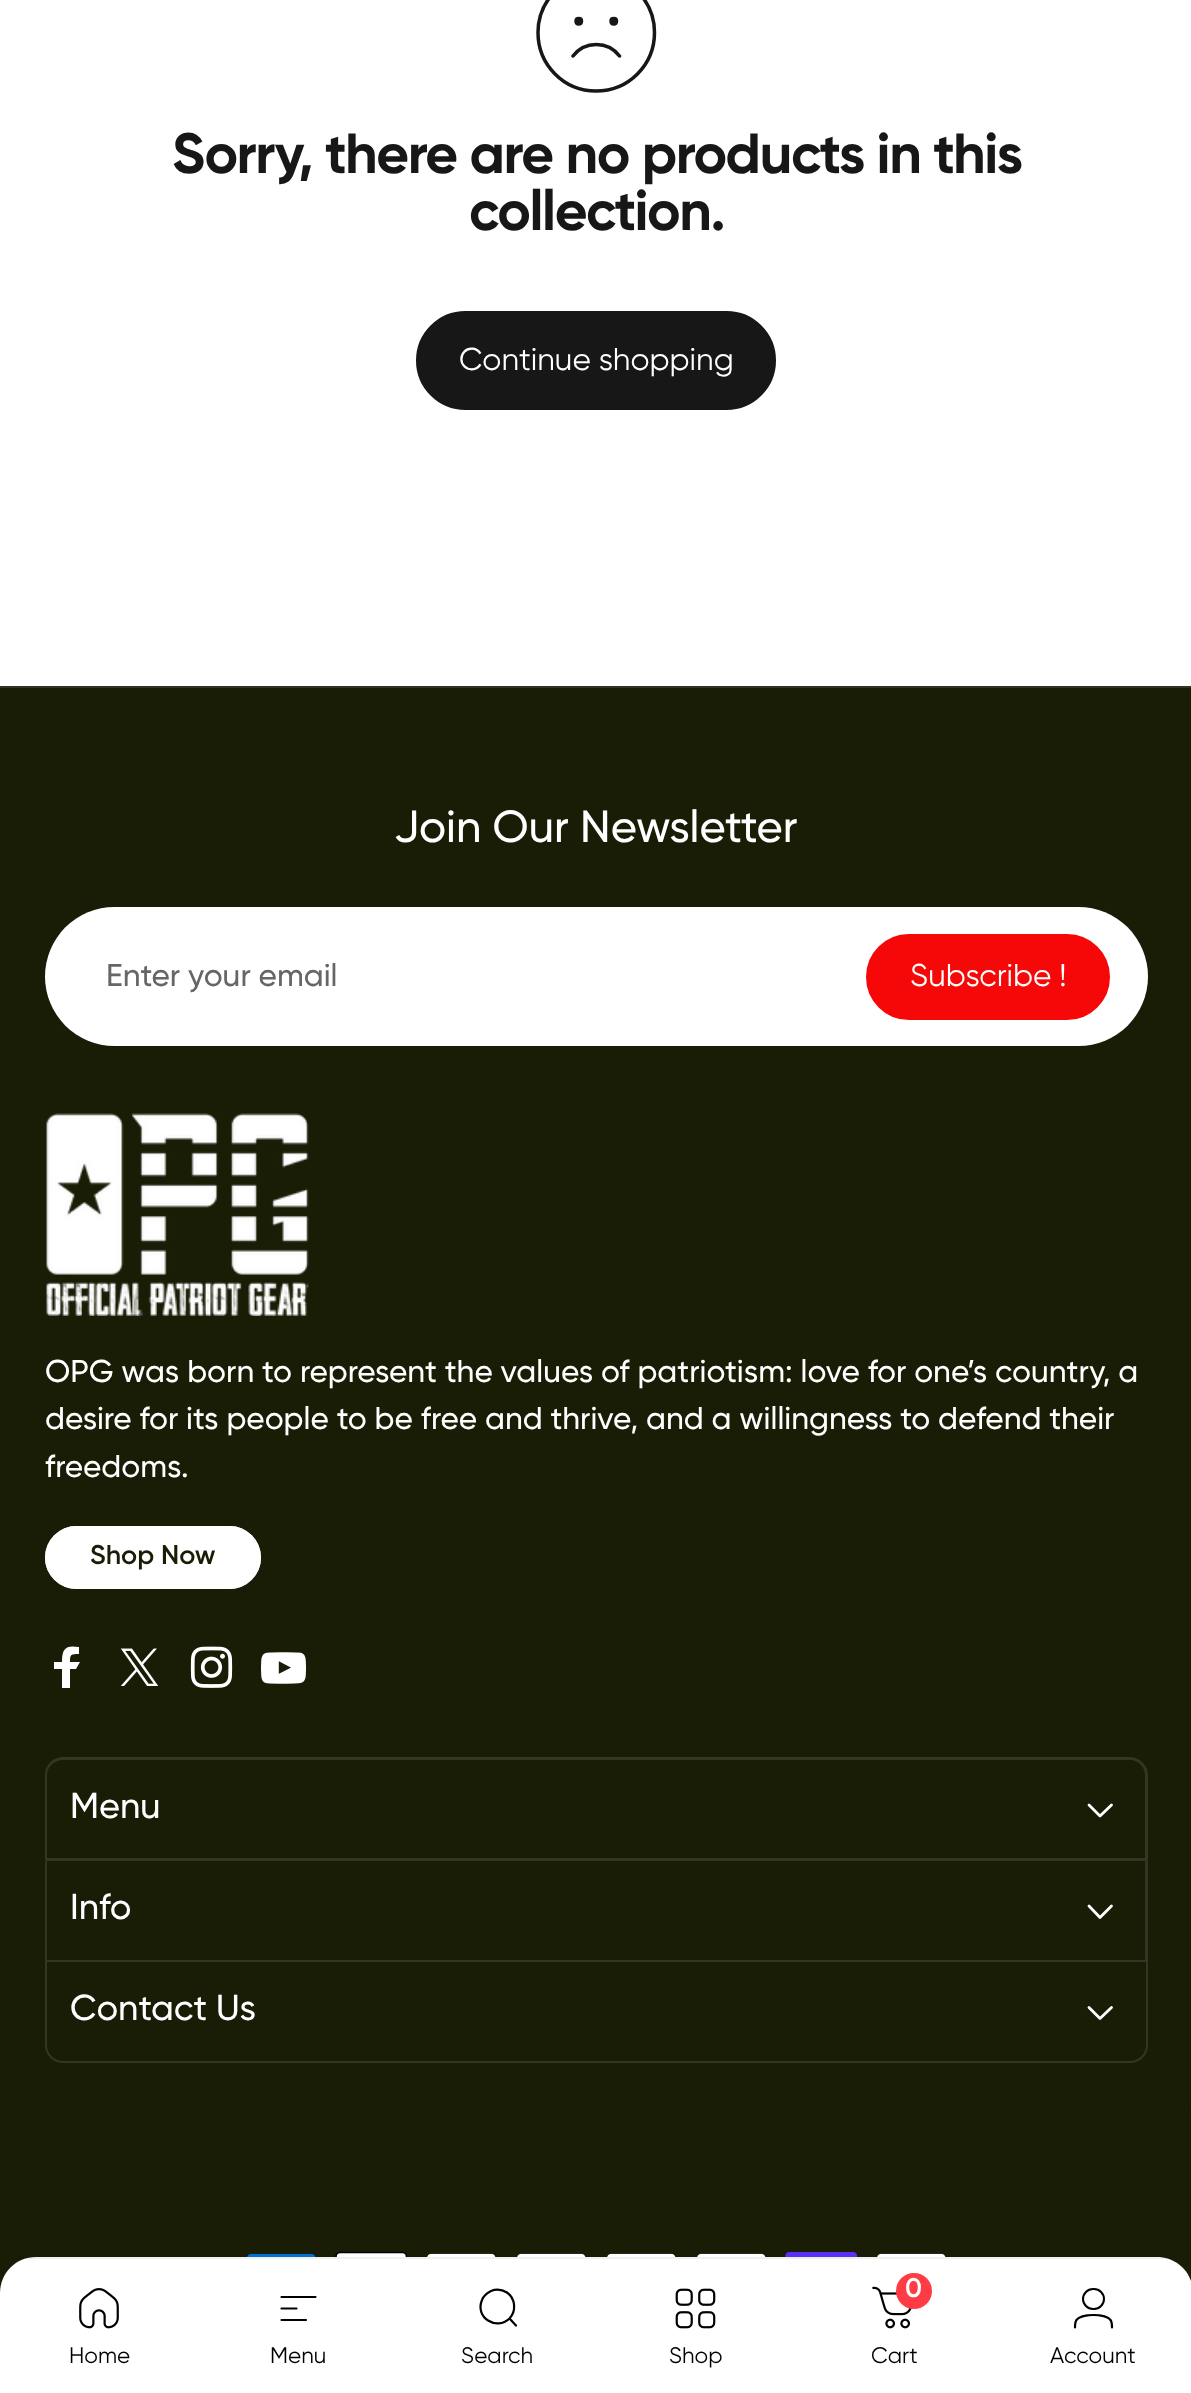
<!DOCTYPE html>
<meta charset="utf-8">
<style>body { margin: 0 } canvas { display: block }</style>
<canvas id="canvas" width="1191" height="2393"></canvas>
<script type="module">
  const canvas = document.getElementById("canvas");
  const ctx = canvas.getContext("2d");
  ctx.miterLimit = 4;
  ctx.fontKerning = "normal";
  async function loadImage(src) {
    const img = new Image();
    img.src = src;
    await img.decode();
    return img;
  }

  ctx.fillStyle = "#ffffff";
  ctx.fillRect(0, 0, 1191, 2393);
  ctx.beginPath();
  ctx.moveTo(581.5, 21);
  ctx.bezierCurveTo(581.5, 25, 576, 25, 576, 21);
  ctx.moveTo(581.5, 21);
  ctx.bezierCurveTo(581.5, 17.5, 576, 17.5, 576, 21);
  ctx.moveTo(581.5, 21);
  ctx.lineTo(576, 21);
  ctx.moveTo(616.5, 21);
  ctx.bezierCurveTo(616.5, 25, 611, 25, 611, 21);
  ctx.moveTo(616.5, 21);
  ctx.bezierCurveTo(616.5, 17.5, 611, 17.5, 611, 21);
  ctx.moveTo(616.5, 21);
  ctx.lineTo(611, 21);
  ctx.moveTo(619.5, 56);
  ctx.bezierCurveTo(608, 40.5, 584.5, 40.5, 573, 56);
  ctx.moveTo(596, 91);
  ctx.bezierCurveTo(628.5, 91, 654.5, 65, 654.5, 32.5);
  ctx.bezierCurveTo(654.5, 0.5, 628.5, -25.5, 596, -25.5);
  ctx.bezierCurveTo(564, -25.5, 538, 0.5, 538, 32.5);
  ctx.bezierCurveTo(538, 65, 564, 91, 596, 91);
  ctx.closePath();
  ctx.strokeStyle = "#171717";
  ctx.lineWidth = 3.5;
  ctx.lineCap = "round";
  ctx.lineJoin = "round";
  ctx.stroke();
  ctx.letterSpacing = "-1.4px";
  ctx.font = "bold 56.6px Gilroy";
  ctx.fillStyle = "#171717";
  ctx.fillText("Sorry, there are no products in this", 172, 173);
  ctx.fillText("collection.", 469, 230);
  ctx.beginPath();
  ctx.roundRect(417, 312, 358, 97, 48.5);
  ctx.fill();
  ctx.lineWidth = 2;
  ctx.lineJoin = "miter";
  ctx.stroke();
  ctx.letterSpacing = "0px";
  ctx.font = "31.5px Gilroy";
  ctx.fillStyle = "#ffffff";
  ctx.fillText("Continue shopping", 459, 370);
  ctx.fillStyle = "#191d06";
  ctx.fillRect(0, 2095, 1191, 198);
  ctx.beginPath();
  ctx.moveTo(0, 686);
  ctx.lineTo(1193, 686);
  ctx.lineTo(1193, 2095);
  ctx.bezierCurveTo(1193, 2115, 1177, 2131, 1157, 2131);
  ctx.lineTo(36, 2131);
  ctx.bezierCurveTo(16, 2131, 0, 2115, 0, 2095);
  ctx.closePath();
  ctx.fill();
  ctx.fillStyle = "#30341f";
  ctx.fillRect(0, 686, 1191, 2);
  ctx.font = "500 45px Gilroy";
  ctx.fillStyle = "#ffffff";
  ctx.fillText("Join Our Newsletter", 394, 842);
  ctx.beginPath();
  ctx.roundRect(45, 907, 1103, 139, 69.5);
  ctx.fill();
  ctx.font = "500 31.5px Gilroy";
  ctx.fillStyle = "#666666";
  ctx.fillText("Enter your email", 106, 986);
  ctx.fillStyle = "#f70808";
  ctx.beginPath();
  ctx.roundRect(865, 933, 246, 88, 44);
  ctx.fill();
  ctx.strokeStyle = "#ffffff";
  ctx.stroke();
  ctx.font = "31.5px Gilroy";
  ctx.fillStyle = "#ffffff";
  ctx.fillText("Subscribe !", 910, 986);
  ctx.drawImage(await loadImage("img1.png"), 46, 1113, 263, 203);
  ctx.font = "500 31.5px Gilroy";
  ctx.fillText("OPG was born to represent the values of patriotism: love for one’s country, a", 45, 1382);
  ctx.fillText("desire for its people to be free and thrive, and a willingness to defend their", 45, 1429);
  ctx.fillText("freedoms.", 45, 1477);
  ctx.beginPath();
  ctx.roundRect(45, 1526, 216, 63, 31.5);
  ctx.fill();
  ctx.beginPath();
  ctx.roundRect(46, 1527, 214, 61, 30.5);
  ctx.stroke();
  ctx.font = "600 27px Gilroy";
  ctx.fillStyle = "#191d06";
  ctx.fillText("Shop Now", 90, 1564);
  ctx.fillStyle = "#ffffff";
  ctx.beginPath();
  ctx.moveTo(62, 1688);
  ctx.lineTo(62, 1669);
  ctx.lineTo(54, 1669);
  ctx.lineTo(54, 1662);
  ctx.lineTo(62, 1662);
  ctx.bezierCurveTo(62, 1648, 66, 1645, 79, 1647);
  ctx.lineTo(79, 1654);
  ctx.bezierCurveTo(71, 1654, 70, 1654, 70, 1662);
  ctx.lineTo(80, 1662);
  ctx.lineTo(76, 1669);
  ctx.lineTo(70, 1669);
  ctx.lineTo(70, 1688);
  ctx.closePath();
  ctx.fill();
  ctx.drawImage(await loadImage("img2.png"), 120, 1648, 39, 38);
  ctx.drawImage(await loadImage("img3.png"), 190, 1646, 43, 42);
  ctx.drawImage(await loadImage("img4.png"), 261, 1652, 45, 32);
  ctx.fillStyle = "#333722";
  ctx.beginPath();
  ctx.moveTo(63, 1757);
  ctx.lineTo(1130, 1757);
  ctx.bezierCurveTo(1139, 1757, 1148, 1765, 1148, 1775);
  ctx.lineTo(1148, 1858);
  ctx.lineTo(45, 1858);
  ctx.lineTo(45, 1775);
  ctx.bezierCurveTo(45, 1765, 53, 1757, 63, 1757);
  ctx.closePath();
  ctx.moveTo(63, 1760);
  ctx.lineTo(1130, 1760);
  ctx.bezierCurveTo(1138, 1760, 1145, 1767, 1145, 1775);
  ctx.lineTo(1145, 1858);
  ctx.lineTo(47, 1858);
  ctx.lineTo(47, 1775);
  ctx.bezierCurveTo(47, 1767, 54, 1760, 63, 1760);
  ctx.closePath();
  ctx.fill("evenodd");
  ctx.font = "500 36px Gilroy";
  ctx.fillStyle = "#ffffff";
  ctx.fillText("Menu", 70, 1818);
  ctx.beginPath();
  ctx.moveTo(1089, 1805);
  ctx.lineTo(1100, 1816);
  ctx.lineTo(1111.5, 1805);
  ctx.lineWidth = 2.8;
  ctx.lineJoin = "round";
  ctx.stroke();
  ctx.fillStyle = "#333722";
  ctx.beginPath();
  ctx.moveTo(45, 1858);
  ctx.lineTo(1148, 1858);
  ctx.lineTo(1145, 1861);
  ctx.lineTo(47, 1861);
  ctx.closePath();
  ctx.fill();
  ctx.fillStyle = "rgba(255, 255, 255, 0.11)";
  ctx.beginPath();
  ctx.moveTo(1148, 1858);
  ctx.lineTo(1148, 1960);
  ctx.lineTo(1145, 1960);
  ctx.lineTo(1145, 1861);
  ctx.closePath();
  ctx.fill();
  ctx.beginPath();
  ctx.moveTo(45, 1960);
  ctx.lineTo(45, 1858);
  ctx.lineTo(47, 1861);
  ctx.lineTo(47, 1960);
  ctx.closePath();
  ctx.fill();
  ctx.fillStyle = "#ffffff";
  ctx.fillText("Info", 70, 1919);
  ctx.beginPath();
  ctx.moveTo(1089, 1906);
  ctx.lineTo(1100, 1917.5);
  ctx.lineTo(1111.5, 1906);
  ctx.stroke();
  ctx.beginPath();
  ctx.roundRect(46, 1961, 1101, 101, [0, 0, 17, 17]);
  ctx.strokeStyle = "#333722";
  ctx.lineWidth = 2;
  ctx.lineJoin = "miter";
  ctx.stroke();
  ctx.fillText("Contact Us", 70, 2020);
  ctx.beginPath();
  ctx.moveTo(1089, 2007.5);
  ctx.lineTo(1100, 2018.5);
  ctx.lineTo(1111.5, 2007.5);
  ctx.strokeStyle = "#ffffff";
  ctx.lineWidth = 2.8;
  ctx.lineJoin = "round";
  ctx.stroke();
  ctx.drawImage(await loadImage("img5.png"), 247, 2253, 69, 4);
  ctx.drawImage(await loadImage("img6.png"), 335, 2251, 72, 6);
  ctx.drawImage(await loadImage("img7.png"), 427, 2253, 69, 4);
  ctx.drawImage(await loadImage("img7.png"), 517, 2253, 69, 4);
  ctx.drawImage(await loadImage("img7.png"), 607, 2253, 69, 4);
  ctx.drawImage(await loadImage("img7.png"), 697, 2253, 69, 4);
  ctx.drawImage(await loadImage("img8.png"), 785, 2252, 72, 5);
  ctx.drawImage(await loadImage("img7.png"), 877, 2253, 69, 4);
  ctx.beginPath();
  ctx.moveTo(36, 2257);
  ctx.lineTo(1157, 2257);
  ctx.bezierCurveTo(1177, 2257, 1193, 2273, 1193, 2293);
  ctx.lineTo(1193, 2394);
  ctx.lineTo(0, 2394);
  ctx.lineTo(0, 2293);
  ctx.bezierCurveTo(0, 2273, 16, 2257, 36, 2257);
  ctx.closePath();
  ctx.fill();
  ctx.fillStyle = "rgba(0, 0, 0, 0.06)";
  ctx.fillRect(18, 2257, 1157, 2);
  ctx.drawImage(await loadImage("img9.png"), 79, 2288, 40, 41);
  ctx.font = "22.5px Gilroy";
  ctx.fillStyle = "#000000";
  ctx.fillText("Home", 69, 2363);
  ctx.beginPath();
  ctx.moveTo(281.5, 2297);
  ctx.lineTo(315.5, 2297);
  ctx.moveTo(281.5, 2308.5);
  ctx.lineTo(296.5, 2308.5);
  ctx.moveTo(281.5, 2320);
  ctx.lineTo(306, 2320);
  ctx.strokeStyle = "#000000";
  ctx.lineWidth = 2.2;
  ctx.stroke();
  ctx.fillText("Menu", 270, 2363);
  ctx.beginPath();
  ctx.moveTo(516, 2325.5);
  ctx.lineTo(509.5, 2318.5);
  ctx.moveTo(509.5, 2318.5);
  ctx.bezierCurveTo(516.5, 2311, 515.5, 2298.5, 507, 2292.5);
  ctx.bezierCurveTo(502, 2289.5, 496, 2289, 491, 2291);
  ctx.bezierCurveTo(487, 2293, 483.5, 2296, 482, 2300);
  ctx.bezierCurveTo(474.5, 2317.5, 496.5, 2331, 509.5, 2318.5);
  ctx.closePath();
  ctx.stroke();
  ctx.fillText("Search", 461, 2363);
  ctx.drawImage(await loadImage("img10.png"), 675, 2288, 41, 41);
  ctx.fillText("Shop", 669, 2363);
  ctx.drawImage(await loadImage("img11.png"), 872, 2286, 40, 43);
  ctx.fillStyle = "#ff3b45";
  ctx.beginPath();
  ctx.arc(914, 2291, 18, 0, Math.PI * 2);
  ctx.fill();
  ctx.font = "600 27px Gilroy";
  ctx.fillStyle = "#ffffff";
  ctx.fillText("0", 905, 2297);
  ctx.font = "22.5px Gilroy";
  ctx.fillStyle = "#000000";
  ctx.fillText("Cart", 871, 2363);
  ctx.beginPath();
  ctx.roundRect(1083, 2289, 21, 20, 10);
  ctx.lineWidth = 2;
  ctx.lineJoin = "miter";
  ctx.stroke();
  ctx.beginPath();
  ctx.moveTo(1093.5, 2315);
  ctx.bezierCurveTo(1098, 2315, 1107.5, 2316, 1110.5, 2320);
  ctx.bezierCurveTo(1112, 2322, 1112, 2324.5, 1112, 2327.5);
  ctx.moveTo(1093.5, 2315);
  ctx.bezierCurveTo(1089, 2315, 1079.5, 2316, 1076.5, 2320);
  ctx.bezierCurveTo(1075, 2322, 1075, 2324.5, 1075, 2327.5);
  ctx.lineWidth = 2.2;
  ctx.lineJoin = "round";
  ctx.stroke();
  ctx.fillText("Account", 1050, 2363);
</script>
